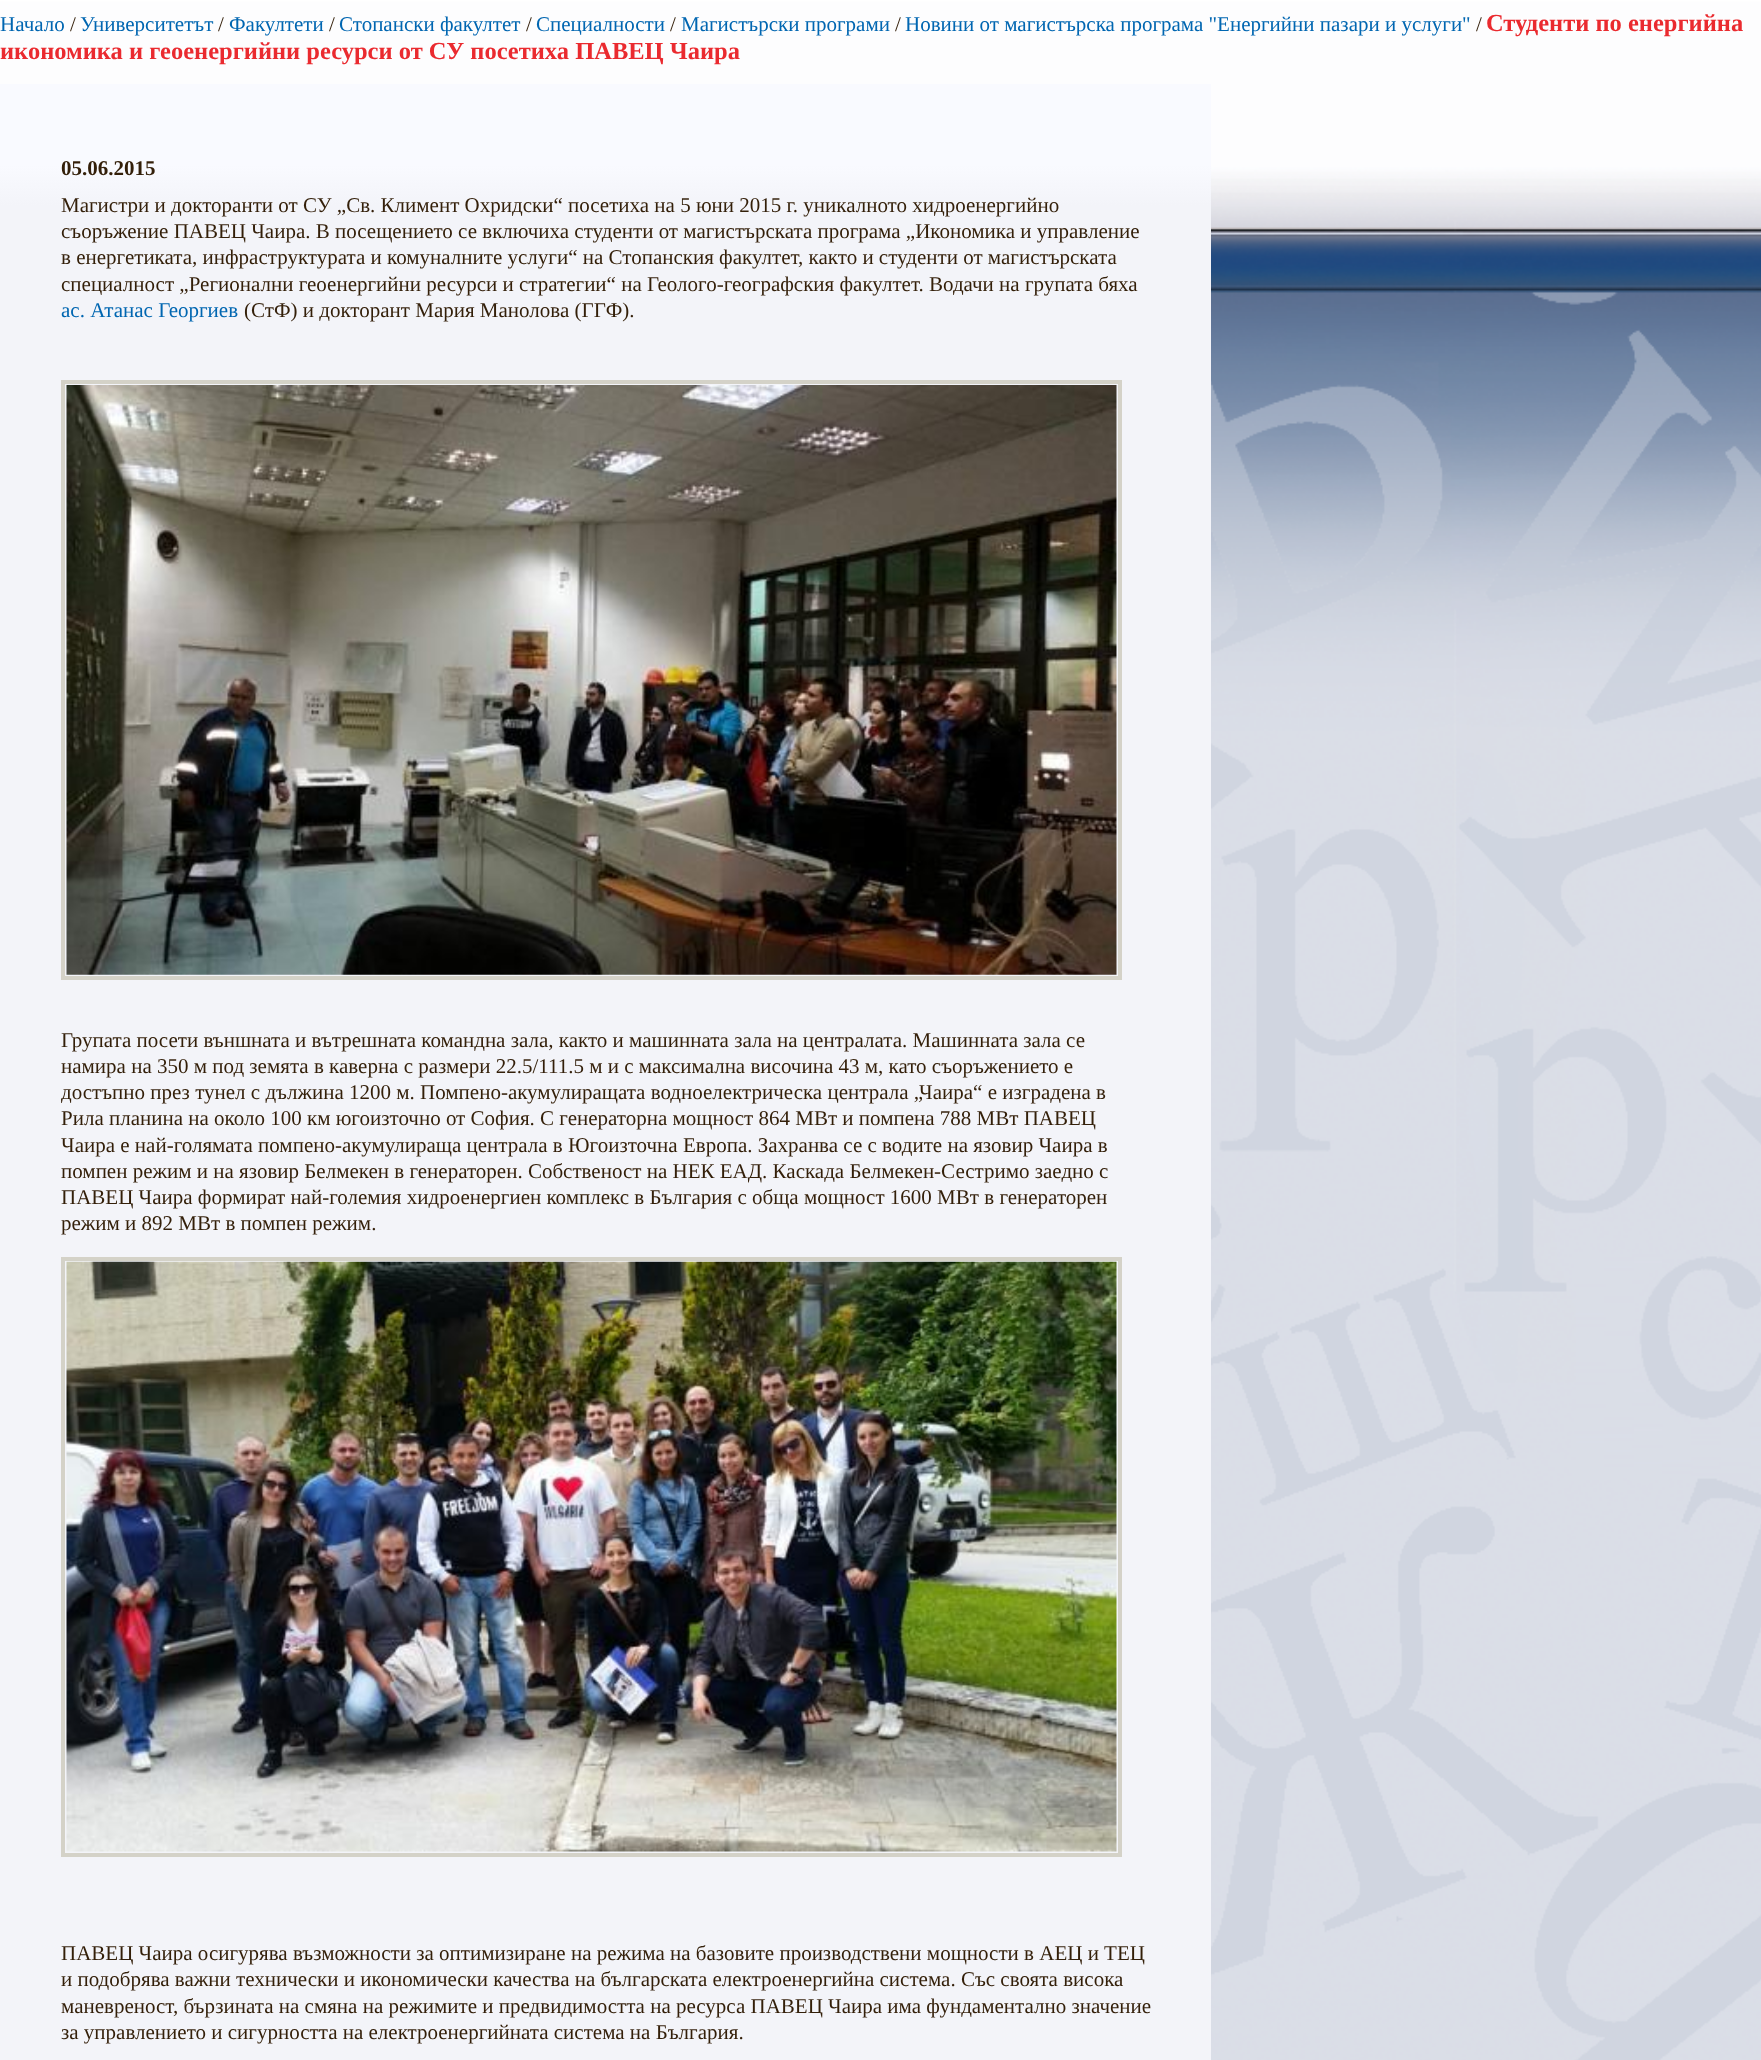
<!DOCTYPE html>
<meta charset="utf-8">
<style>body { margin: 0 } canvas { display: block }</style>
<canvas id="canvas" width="1761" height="2060"></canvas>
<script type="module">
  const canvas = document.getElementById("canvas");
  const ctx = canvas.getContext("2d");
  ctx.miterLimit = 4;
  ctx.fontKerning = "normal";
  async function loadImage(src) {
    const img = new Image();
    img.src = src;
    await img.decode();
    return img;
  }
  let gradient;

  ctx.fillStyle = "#ffffff";
  ctx.fillRect(0, 0, 1761, 2060);
  ctx.drawImage(await loadImage("img1.png"), 0, 0, 1761, 2060);
  ctx.font = "21px Liberation Serif";
  ctx.fillStyle = "#0066b1";
  ctx.fillText("Начало", 0, 31);
  ctx.fillStyle = "#331f09";
  ctx.fillText("/", 70, 31);
  ctx.fillStyle = "#0066b1";
  ctx.fillText("Университетът", 80, 31);
  ctx.fillStyle = "#331f09";
  ctx.fillText("/", 218, 31);
  ctx.fillStyle = "#0066b1";
  ctx.fillText("Факултети", 229, 31);
  ctx.fillStyle = "#331f09";
  ctx.fillText("/", 329, 31);
  ctx.fillStyle = "#0066b1";
  ctx.fillText("Стопански факултет", 339, 31);
  ctx.fillStyle = "#331f09";
  ctx.fillText("/", 526, 31);
  ctx.fillStyle = "#0066b1";
  ctx.fillText("Специалности", 536, 31);
  ctx.fillStyle = "#331f09";
  ctx.fillText("/", 670, 31);
  ctx.fillStyle = "#0066b1";
  ctx.fillText("Магистърски програми", 681, 31);
  ctx.fillStyle = "#331f09";
  ctx.fillText("/", 895, 31);
  ctx.fillStyle = "#0066b1";
  ctx.fillText("Новини от магистърска програма \"Енергийни пазари и услуги\"", 905, 31);
  ctx.fillStyle = "#331f09";
  ctx.fillText("/", 1476, 31);
  ctx.font = "bold 24.5px Liberation Serif";
  ctx.fillStyle = "#ea2a2f";
  ctx.fillText("Студенти по енергийна", 1486, 31);
  ctx.fillText("икономика и геоенергийни ресурси от СУ посетиха ПАВЕЦ Чаира", 0, 59);
  gradient = ctx.createLinearGradient(605, 84, 606, 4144);
  gradient.addColorStop(0.02, "#f9faff");
  gradient.addColorStop(0.03, "#f3f4f9");
  ctx.fillStyle = gradient;
  ctx.fillRect(0, 84, 1211, 1976);
  ctx.font = "bold 21px Liberation Serif";
  ctx.fillStyle = "#331f09";
  ctx.fillText("05.06.2015", 61, 175);
  ctx.font = "21px Liberation Serif";
  ctx.fillText("Магистри и докторанти от СУ „Св. Климент Охридски“ посетиха на 5 юни 2015 г. уникалното хидроенергийно", 61, 212);
  ctx.fillText("съоръжение ПАВЕЦ Чаира. В посещението се включиха студенти от магистърската програма „Икономика и управление", 61, 238);
  ctx.fillText("в енергетиката, инфраструктурата и комуналните услуги“ на Стопанския факултет, както и студенти от магистърската", 61, 264);
  ctx.fillText("специалност „Регионални геоенергийни ресурси и стратегии“ на Геолого-географския факултет. Водачи на групата бяха", 61, 291);
  ctx.fillStyle = "#0066b1";
  ctx.fillText("ас. Атанас Георгиев", 61, 317);
  ctx.fillStyle = "#331f09";
  ctx.fillText("(СтФ) и докторант Мария Манолова (ГГФ).", 244, 317);
  ctx.strokeStyle = "#d4d2c8";
  ctx.lineWidth = 4;
  ctx.strokeRect(63, 382, 1057, 596);
  ctx.drawImage(await loadImage("img2.png"), 66, 385, 1051, 590);
  ctx.fillText("Групата посети външната и вътрешната командна зала, както и машинната зала на централата. Машинната зала се", 61, 1047);
  ctx.fillText("намира на 350 м под земята в каверна с размери 22.5/111.5 м и с максимална височина 43 м, като съоръжението е", 61, 1073);
  ctx.fillText("достъпно през тунел с дължина 1200 м. Помпено-акумулиращата водноелектрическа централа „Чаира“ е изградена в", 61, 1099);
  ctx.fillText("Рила планина на около 100 км югоизточно от София. С генераторна мощност 864 МВт и помпена 788 МВт ПАВЕЦ", 61, 1125);
  ctx.fillText("Чаира е най-голямата помпено-акумулираща централа в Югоизточна Европа. Захранва се с водите на язовир Чаира в", 61, 1152);
  ctx.fillText("помпен режим и на язовир Белмекен в генераторен. Собственост на НЕК ЕАД. Каскада Белмекен-Сестримо заедно с", 61, 1178);
  ctx.fillText("ПАВЕЦ Чаира формират най-големия хидроенергиен комплекс в България с обща мощност 1600 МВт в генераторен", 61, 1204);
  ctx.fillText("режим и 892 МВт в помпен режим.", 61, 1230);
  ctx.strokeRect(63, 1259, 1057, 596);
  ctx.drawImage(await loadImage("img3.png"), 66, 1261, 1051, 591);
  ctx.fillText("ПАВЕЦ Чаира осигурява възможности за оптимизиране на режима на базовите производствени мощности в АЕЦ и ТЕЦ", 61, 1960);
  ctx.fillText("и подобрява важни технически и икономически качества на българската електроенергийна система. Със своята висока", 61, 1986);
  ctx.fillText("маневреност, бързината на смяна на режимите и предвидимостта на ресурса ПАВЕЦ Чаира има фундаментално значение", 61, 2013);
  ctx.fillText("за управлението и сигурността на електроенергийната система на България.", 61, 2039);
</script>
